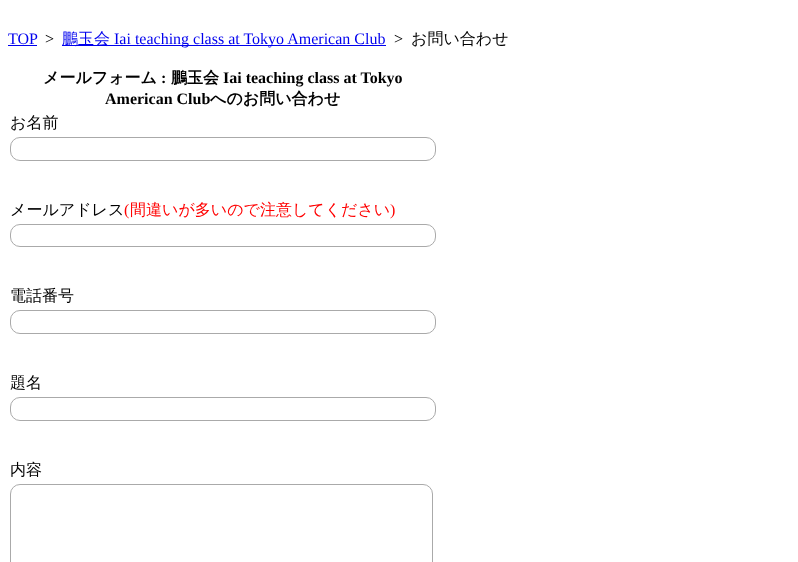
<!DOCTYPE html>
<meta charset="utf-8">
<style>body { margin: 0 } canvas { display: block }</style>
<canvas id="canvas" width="798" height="562"></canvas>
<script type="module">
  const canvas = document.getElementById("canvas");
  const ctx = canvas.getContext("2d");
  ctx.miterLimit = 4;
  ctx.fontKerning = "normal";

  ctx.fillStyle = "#ffffff";
  ctx.fillRect(0, 0, 798, 562);
  ctx.font = "16px Liberation Serif";
  ctx.fillStyle = "#0000ee";
  ctx.fillText("TOP", 8, 44);
  ctx.fillRect(8, 45, 29, 1);
  ctx.fillStyle = "#000000";
  ctx.fillText(">", 45, 44);
  ctx.fillStyle = "#0000ee";
  ctx.fillRect(62, 45, 324, 1);
  ctx.font = "500 16px WenQuanYi Zen Hei";
  ctx.fillText("鵬玉会", 62, 44);
  ctx.font = "16px Liberation Serif";
  ctx.fillText("Iai teaching class at Tokyo American Club", 114, 44);
  ctx.fillStyle = "#000000";
  ctx.fillText(">", 394, 44);
  ctx.font = "500 16px WenQuanYi Zen Hei";
  ctx.fillText("お問い合わせ", 411, 44);
  ctx.font = "bold 16px WenQuanYi Zen Hei";
  ctx.fillText("メールフォーム", 43, 83);
  ctx.font = "bold 16px Liberation Serif";
  ctx.fillText(":", 161, 83);
  ctx.font = "bold 16px WenQuanYi Zen Hei";
  ctx.fillText("鵬玉会", 171, 83);
  ctx.font = "bold 16px Liberation Serif";
  ctx.fillText("Iai teaching class at Tokyo", 223, 83);
  ctx.fillText("American Club", 105, 104);
  ctx.font = "bold 16px WenQuanYi Zen Hei";
  ctx.fillText("へのお問い合わせ", 210, 104);
  ctx.font = "500 16px WenQuanYi Zen Hei";
  ctx.fillText("お名前", 10, 128);
  ctx.beginPath();
  ctx.roundRect(10.5, 137.5, 425, 23, 9.5);
  ctx.strokeStyle = "#aaaaaa";
  ctx.stroke();
  ctx.fillText("メールアドレス", 10, 215);
  ctx.font = "16px Liberation Serif";
  ctx.fillStyle = "#ff0000";
  ctx.fillText("(", 124, 215);
  ctx.font = "500 16px WenQuanYi Zen Hei";
  ctx.fillText("間違いが多いので注意してください", 130, 215);
  ctx.font = "16px Liberation Serif";
  ctx.fillText(")", 390, 215);
  ctx.beginPath();
  ctx.roundRect(10.5, 224.5, 425, 22, 9.5);
  ctx.stroke();
  ctx.font = "500 16px WenQuanYi Zen Hei";
  ctx.fillStyle = "#000000";
  ctx.fillText("電話番号", 10, 301);
  ctx.beginPath();
  ctx.roundRect(10.5, 310.5, 425, 23, 9.5);
  ctx.stroke();
  ctx.fillText("題名", 10, 388);
  ctx.beginPath();
  ctx.roundRect(10.5, 397.5, 425, 23, 9.5);
  ctx.stroke();
  ctx.fillText("内容", 10, 475);
  ctx.beginPath();
  ctx.roundRect(10.5, 484.5, 422, 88, 9.5);
  ctx.stroke();
</script>
